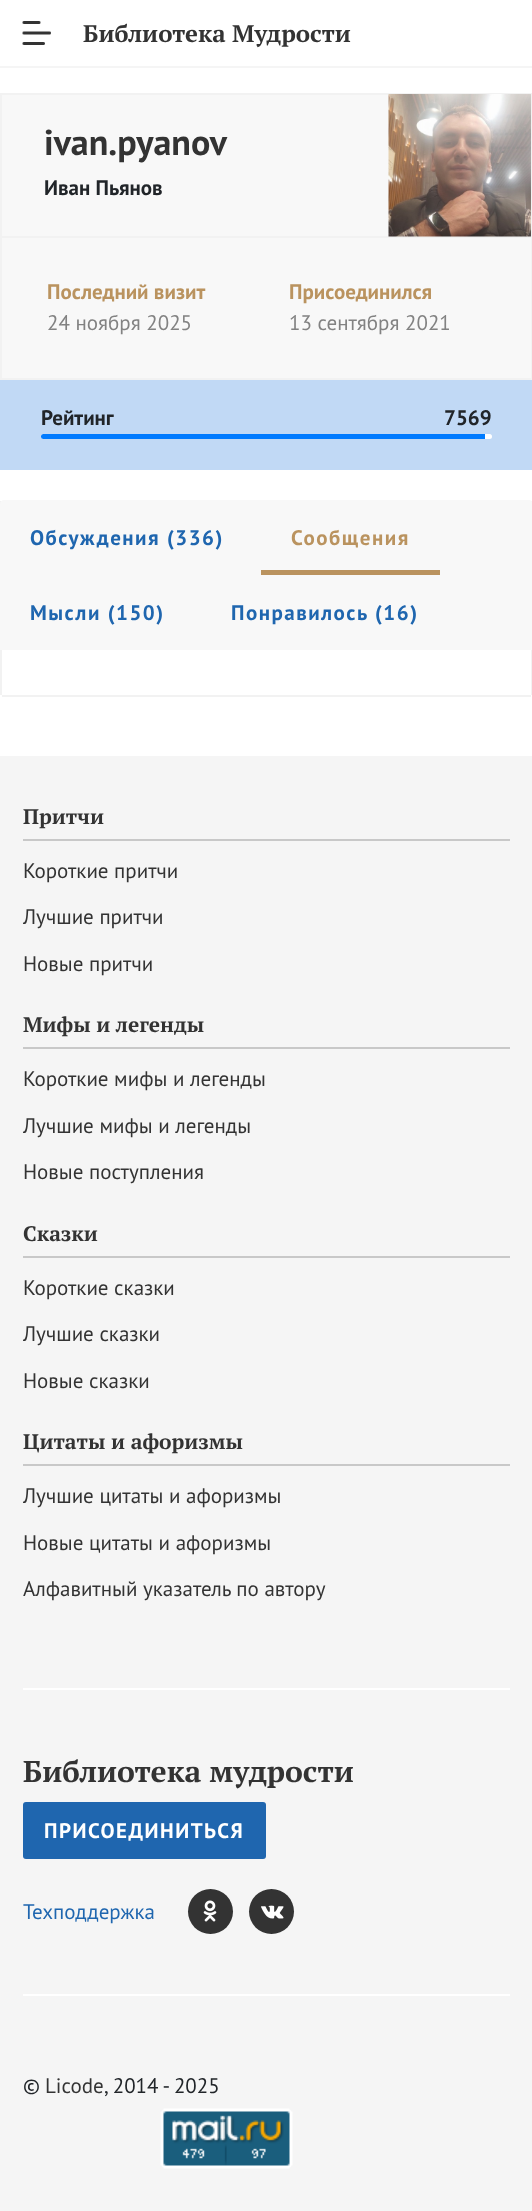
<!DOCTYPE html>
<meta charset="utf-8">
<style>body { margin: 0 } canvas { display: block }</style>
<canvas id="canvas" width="532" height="2211"></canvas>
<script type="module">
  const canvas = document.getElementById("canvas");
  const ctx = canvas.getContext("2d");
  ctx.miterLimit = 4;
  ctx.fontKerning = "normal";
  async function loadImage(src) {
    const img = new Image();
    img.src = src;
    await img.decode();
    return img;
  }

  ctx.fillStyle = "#ffffff";
  ctx.fillRect(0, 0, 532, 2211);
  ctx.fillStyle = "#f5f5f5";
  ctx.fillRect(0, 66, 532, 2);
  ctx.drawImage(await loadImage("img1.png"), 22, 21, 29, 24);
  ctx.font = "bold 24px PT Serif";
  ctx.fillStyle = "#333333";
  ctx.fillText("Библиотека Мудрости", 83, 42);
  ctx.fillStyle = "#f8f8f8";
  ctx.beginPath();
  ctx.rect(1, 94, 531, 285);
  ctx.fill();
  ctx.strokeStyle = "#f2f2f2";
  ctx.lineWidth = 2;
  ctx.stroke();
  ctx.fillStyle = "#f2f2f2";
  ctx.fillRect(2, 236, 529, 2);
  ctx.font = "bold 36px PT Sans";
  ctx.fillStyle = "#333333";
  ctx.fillText("ivan.pyanov", 44, 155);
  ctx.drawImage(await loadImage("img2.png"), 388, 94, 143, 143);
  ctx.font = "bold 21px PT Sans";
  ctx.fillStyle = "#212529";
  ctx.fillText("Иван Пьянов", 44, 195);
  ctx.fillStyle = "#ba935f";
  ctx.fillText("Последний визит", 47, 299);
  ctx.font = "21px PT Sans";
  ctx.fillStyle = "#828282";
  ctx.fillText("24 ноября 2025", 47, 330);
  ctx.font = "bold 21px PT Sans";
  ctx.fillStyle = "#ba935f";
  ctx.fillText("Присоединился", 289, 299);
  ctx.font = "21px PT Sans";
  ctx.fillStyle = "#828282";
  ctx.fillText("13 сентября 2021", 289, 330);
  ctx.fillStyle = "#c1d9f5";
  ctx.fillRect(0, 380, 532, 90);
  ctx.font = "bold 21px PT Sans";
  ctx.fillStyle = "#212529";
  ctx.fillText("Рейтинг", 41, 425);
  ctx.fillText("7569", 444, 425);
  ctx.fillStyle = "#ffffff";
  ctx.beginPath();
  ctx.roundRect(41, 434, 451, 5, 2.5);
  ctx.fill();
  ctx.fillStyle = "#007bff";
  ctx.beginPath();
  ctx.roundRect(41, 434, 444, 5, [2.5, 0, 0, 2.5]);
  ctx.fill();
  ctx.fillStyle = "#f2f2f2";
  ctx.fillRect(531, 501, 1, 194);
  ctx.fillRect(2, 695, 529, 2);
  ctx.fillRect(0, 501, 2, 194);
  ctx.fillStyle = "#f8f8f8";
  ctx.beginPath();
  ctx.moveTo(4, 500);
  ctx.lineTo(529, 500);
  ctx.bezierCurveTo(531, 500, 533, 502, 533, 504);
  ctx.lineTo(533, 650);
  ctx.lineTo(0, 650);
  ctx.lineTo(0, 504);
  ctx.bezierCurveTo(0, 502, 2, 500, 4, 500);
  ctx.closePath();
  ctx.fill();
  ctx.letterSpacing = "1.5px";
  ctx.fillStyle = "#1f66af";
  ctx.fillText("Обсуждения (336)", 30, 545);
  ctx.fillStyle = "#ba935f";
  ctx.fillRect(261, 570, 179, 5);
  ctx.fillText("Сообщения", 291, 545);
  ctx.fillStyle = "#1f66af";
  ctx.fillText("Мысли (150)", 30, 620);
  ctx.fillText("Понравилось (16)", 231, 620);
  ctx.fillStyle = "#f5f5f5";
  ctx.fillRect(0, 756, 532, 1455);
  ctx.fillStyle = "#c8c8c8";
  ctx.fillRect(23, 839, 487, 2);
  ctx.letterSpacing = "0px";
  ctx.font = "bold 21px PT Serif";
  ctx.fillStyle = "#333333";
  ctx.fillText("Притчи", 23, 824);
  ctx.font = "21px PT Sans";
  ctx.fillText("Короткие притчи", 23, 878);
  ctx.fillText("Лучшие притчи", 23, 924);
  ctx.fillText("Новые притчи", 23, 971);
  ctx.fillStyle = "#c8c8c8";
  ctx.fillRect(23, 1047, 487, 2);
  ctx.font = "bold 21px PT Serif";
  ctx.fillStyle = "#333333";
  ctx.fillText("Мифы и легенды", 23, 1032);
  ctx.font = "21px PT Sans";
  ctx.fillText("Короткие мифы и легенды", 23, 1086);
  ctx.fillText("Лучшие мифы и легенды", 23, 1133);
  ctx.fillText("Новые поступления", 23, 1179);
  ctx.fillStyle = "#c8c8c8";
  ctx.fillRect(23, 1256, 487, 2);
  ctx.font = "bold 21px PT Serif";
  ctx.fillStyle = "#333333";
  ctx.fillText("Сказки", 23, 1241);
  ctx.font = "21px PT Sans";
  ctx.fillText("Короткие сказки", 23, 1295);
  ctx.fillText("Лучшие сказки", 23, 1341);
  ctx.fillText("Новые сказки", 23, 1388);
  ctx.fillStyle = "#c8c8c8";
  ctx.fillRect(23, 1464, 487, 2);
  ctx.font = "bold 21px PT Serif";
  ctx.fillStyle = "#333333";
  ctx.fillText("Цитаты и афоризмы", 23, 1449);
  ctx.font = "21px PT Sans";
  ctx.fillText("Лучшие цитаты и афоризмы", 23, 1503);
  ctx.fillText("Новые цитаты и афоризмы", 23, 1550);
  ctx.fillText("Алфавитный указатель по автору", 23, 1596);
  ctx.fillStyle = "#ffffff";
  ctx.fillRect(23, 1688, 487, 2);
  ctx.fillRect(23, 1994, 487, 2);
  ctx.font = "bold 30px PT Serif";
  ctx.fillStyle = "#333333";
  ctx.fillText("Библиотека мудрости", 23, 1782);
  ctx.fillStyle = "#1f66af";
  ctx.beginPath();
  ctx.roundRect(23, 1802, 243, 57, 3);
  ctx.fill();
  ctx.letterSpacing = "1.5px";
  ctx.font = "bold 21px PT Sans";
  ctx.fillStyle = "#ffffff";
  ctx.fillText("ПРИСОЕДИНИТЬСЯ", 44, 1838);
  ctx.letterSpacing = "0px";
  ctx.font = "21px PT Sans";
  ctx.fillStyle = "#1f66af";
  ctx.fillText("Техподдержка", 23, 1919);
  ctx.fillStyle = "#333333";
  ctx.beginPath();
  ctx.arc(210.5, 1911.5, 22.5, 0, Math.PI * 2);
  ctx.fill();
  ctx.drawImage(await loadImage("img3.png"), 203, 1900, 14, 22);
  ctx.beginPath();
  ctx.arc(271.5, 1911.5, 22.5, 0, Math.PI * 2);
  ctx.fill();
  ctx.drawImage(await loadImage("img4.png"), 261, 1905, 23, 14);
  ctx.fillStyle = "#212529";
  ctx.fillText("©", 23, 2093);
  ctx.fillStyle = "#333333";
  ctx.fillText("Licode", 45, 2093);
  ctx.fillStyle = "#212529";
  ctx.fillText(", 2014 - 2025", 104, 2093);
  ctx.drawImage(await loadImage("img5.png"), 160, 2108, 133, 61);
</script>
